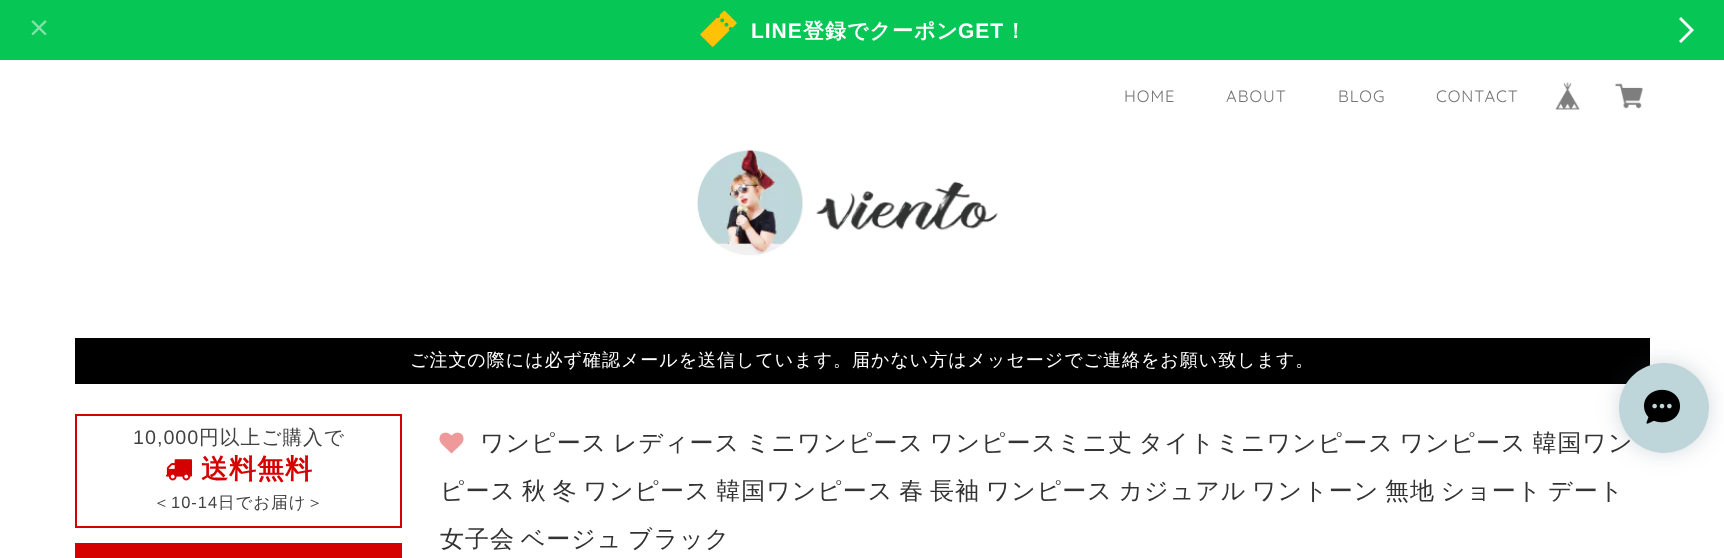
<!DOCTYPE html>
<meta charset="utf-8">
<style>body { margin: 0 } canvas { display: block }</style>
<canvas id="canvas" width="1724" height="558"></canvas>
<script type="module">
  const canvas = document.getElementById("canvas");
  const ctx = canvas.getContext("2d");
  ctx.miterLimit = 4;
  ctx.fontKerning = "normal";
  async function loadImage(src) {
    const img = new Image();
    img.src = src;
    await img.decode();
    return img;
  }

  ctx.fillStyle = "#ffffff";
  ctx.fillRect(0, 0, 1724, 558);
  ctx.fillStyle = "#06c755";
  ctx.fillRect(0, 0, 1724, 60);
  ctx.drawImage(await loadImage("img1.png"), 31, 20, 16, 16);
  ctx.drawImage(await loadImage("img2.png"), 700, 10, 37, 37);
  ctx.letterSpacing = "0.98px";
  ctx.font = "bold 21px Liberation Sans";
  ctx.fillStyle = "#ffffff";
  ctx.fillText("LINE", 751, 38);
  ctx.font = "bold 21px WenQuanYi Zen Hei";
  ctx.fillText("登録でクーポン", 803, 38);
  ctx.font = "bold 21px Liberation Sans";
  ctx.fillText("GET", 958, 38);
  ctx.font = "bold 21px WenQuanYi Zen Hei";
  ctx.fillText("！", 1005, 38);
  ctx.beginPath();
  ctx.moveTo(1690, 30);
  ctx.lineTo(1679, 19);
  ctx.lineTo(1681, 17);
  ctx.lineTo(1694, 30);
  ctx.lineTo(1681, 43);
  ctx.lineTo(1679, 41);
  ctx.closePath();
  ctx.fill();
  ctx.font = "300 16.5px Quicksand";
  ctx.fillStyle = "#757575";
  ctx.fillText("HOME", 1124, 102);
  ctx.fillText("ABOUT", 1226, 102);
  ctx.fillText("BLOG", 1338, 102);
  ctx.fillText("CONTACT", 1436, 102);
  ctx.drawImage(await loadImage("img3.png"), 1555, 82, 25, 28);
  ctx.drawImage(await loadImage("img4.png"), 1615, 83, 28, 26);
  ctx.drawImage(await loadImage("img5.png"), 697, 149, 301, 107);
  ctx.fillStyle = "#000000";
  ctx.fillRect(75, 338, 1575, 46);
  ctx.font = "500 18px WenQuanYi Zen Hei";
  ctx.fillStyle = "#ffffff";
  ctx.fillText("ご注文の際には必ず確認メールを送信しています。届かない方はメッセージでご連絡をお願い致します。", 410, 366);
  ctx.strokeStyle = "#d50000";
  ctx.lineWidth = 2;
  ctx.strokeRect(76, 415, 325, 112);
  ctx.font = "19.75px Liberation Sans";
  ctx.fillStyle = "#424242";
  ctx.fillText("10,000", 133, 444);
  ctx.font = "500 19.75px WenQuanYi Zen Hei";
  ctx.fillText("円以上ご購入で", 199, 444);
  ctx.drawImage(await loadImage("img6.png"), 166, 459, 26, 22);
  ctx.font = "bold 27px WenQuanYi Zen Hei";
  ctx.fillStyle = "#d50000";
  ctx.fillText("送料無料", 201, 478);
  ctx.font = "500 16.5px WenQuanYi Zen Hei";
  ctx.fillStyle = "#424242";
  ctx.fillText("＜", 153, 508);
  ctx.font = "16.5px Liberation Sans";
  ctx.fillText("10-14", 171, 508);
  ctx.font = "500 16.5px WenQuanYi Zen Hei";
  ctx.fillText("日でお届け＞", 218, 508);
  ctx.fillStyle = "#d50000";
  ctx.fillRect(75, 543, 327, 15);
  ctx.drawImage(await loadImage("img7.png"), 439, 432, 25, 22);
  ctx.wordSpacing = "-2.4px";
  ctx.font = "500 24px WenQuanYi Zen Hei";
  ctx.fillStyle = "#333333";
  ctx.fillText("ワンピース レディース ミニワンピース ワンピースミニ丈 タイトミニワンピース ワンピース 韓国ワン", 480, 451);
  ctx.fillText("ピース 秋 冬 ワンピース 韓国ワンピース 春 長袖 ワンピース カジュアル ワントーン 無地 ショート デート", 440, 499);
  ctx.fillText("女子会 ベージュ ブラック", 440, 547);
  ctx.fillStyle = "rgba(51, 66, 88, 0.2)";
  ctx.filter = "blur(11px)";
  ctx.beginPath();
  ctx.roundRect(1619, 363, 90, 90, 45);
  ctx.fill();
  ctx.filter = "none";
  ctx.fillStyle = "#bed6da";
  ctx.beginPath();
  ctx.arc(1664, 408, 45, 0, Math.PI * 2);
  ctx.fill();
  ctx.drawImage(await loadImage("img8.png"), 1644, 389, 36, 35);
</script>
